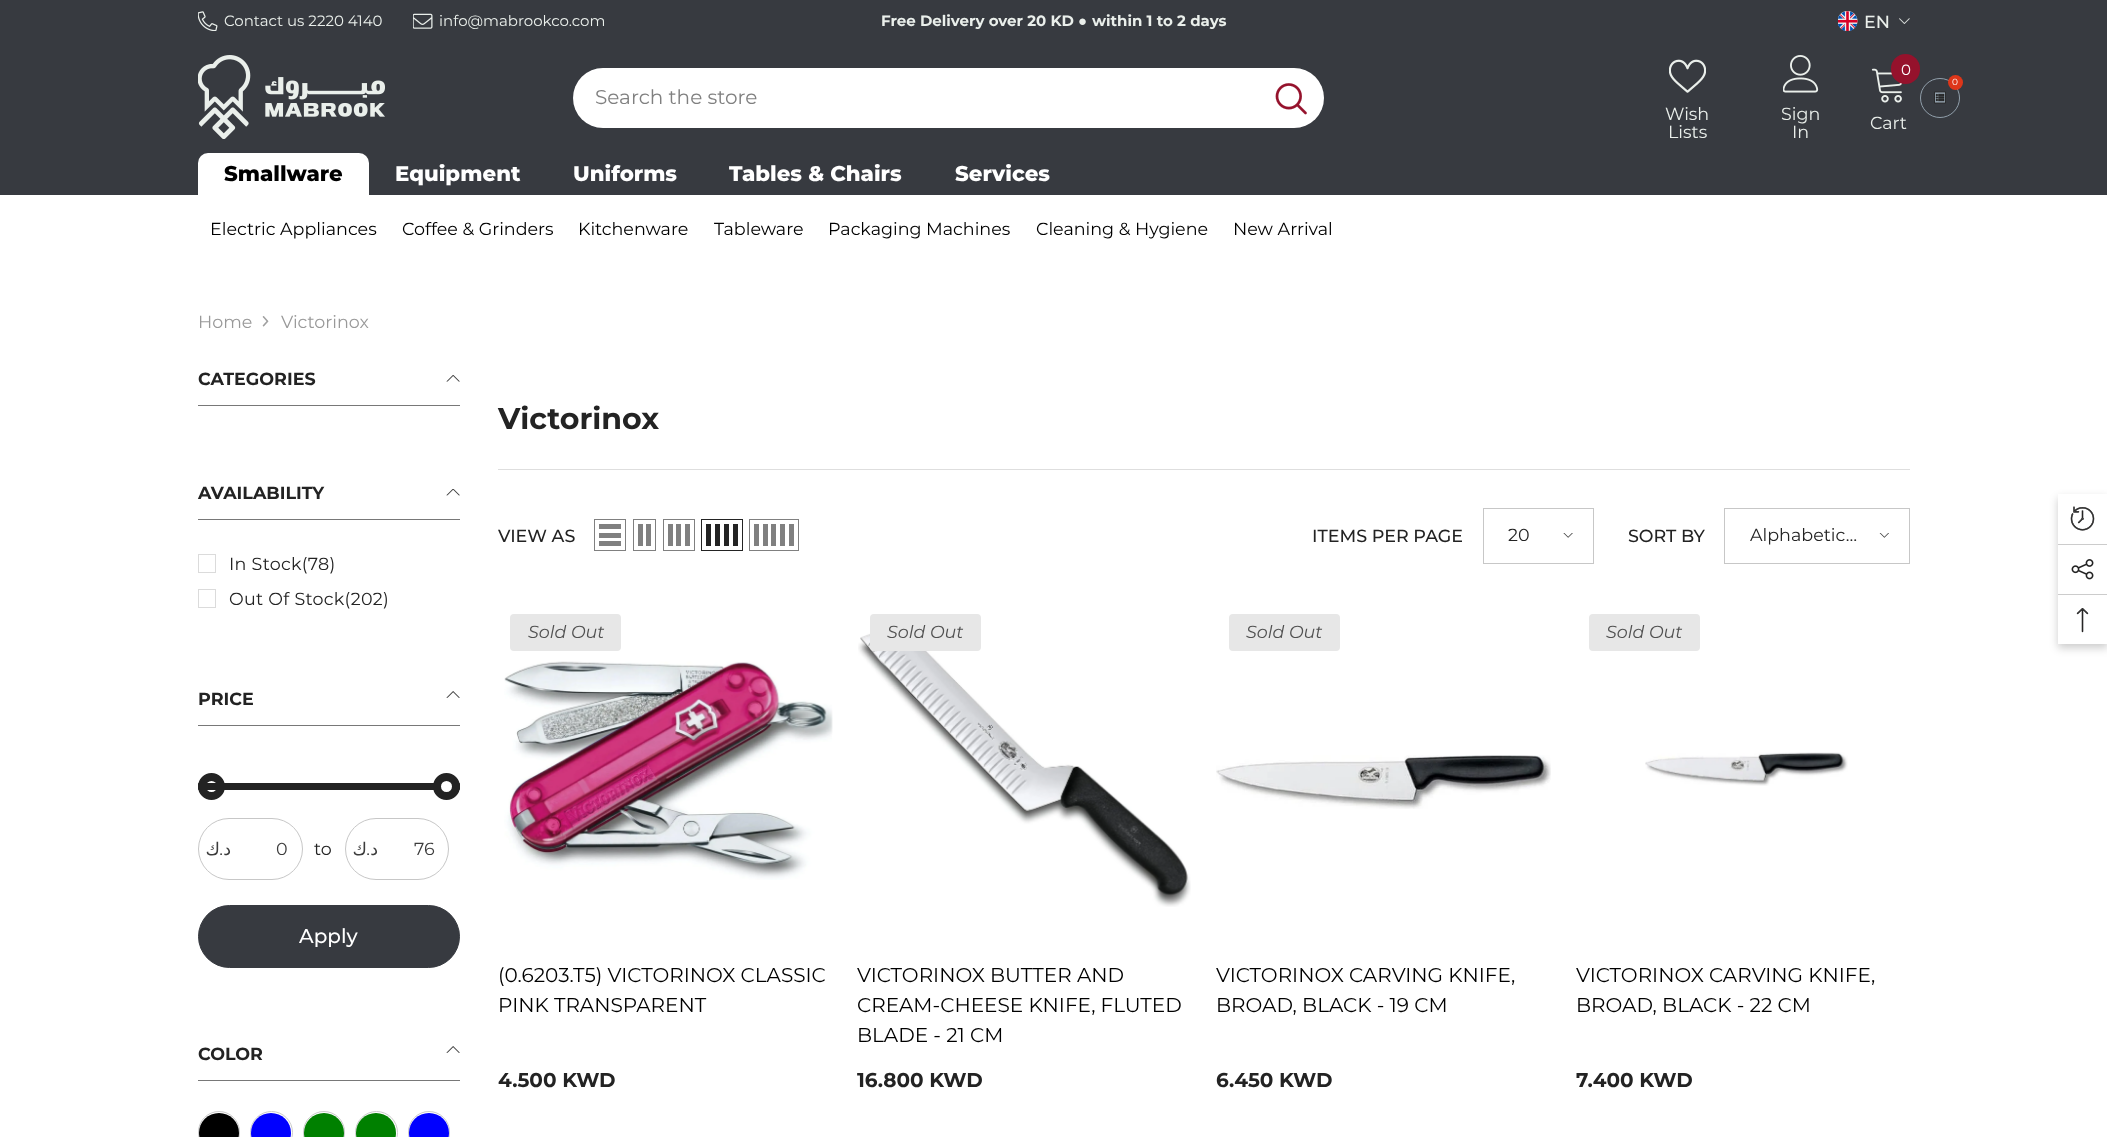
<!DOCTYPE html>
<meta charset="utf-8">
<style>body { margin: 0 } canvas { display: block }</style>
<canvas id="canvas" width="2107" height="1137"></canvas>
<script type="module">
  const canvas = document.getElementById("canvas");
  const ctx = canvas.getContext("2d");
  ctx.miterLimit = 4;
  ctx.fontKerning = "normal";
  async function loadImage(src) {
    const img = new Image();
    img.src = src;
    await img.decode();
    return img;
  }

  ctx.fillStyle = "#ffffff";
  ctx.fillRect(0, 0, 2107, 1137);
  ctx.fillStyle = "#373a40";
  ctx.fillRect(0, 0, 2107, 195);
  ctx.drawImage(await loadImage("img1.png"), 198, 11, 20, 20);
  ctx.font = "15px Montserrat";
  ctx.fillStyle = "#eaefeb";
  ctx.fillText("Contact us 2220 4140", 224, 26);
  ctx.drawImage(await loadImage("img2.png"), 413, 13, 20, 16);
  ctx.fillText("info@mabrookco.com", 439, 26);
  ctx.font = "bold 15px Montserrat";
  ctx.fillText("Free Delivery over 20 KD", 881, 26);
  ctx.font = "bold 15px Liberation Serif";
  ctx.fillText("●", 1078, 26);
  ctx.font = "bold 15px Montserrat";
  ctx.fillText("within 1 to 2 days", 1092, 26);
  ctx.drawImage(await loadImage("img3.png"), 1838, 11, 20, 20);
  ctx.font = "500 17.5px Montserrat";
  ctx.fillText("EN", 1864, 28);
  ctx.drawImage(await loadImage("img4.png"), 1899, 18, 11, 6);
  ctx.drawImage(await loadImage("img5.png"), 198, 55, 187, 84);
  ctx.fillStyle = "#ffffff";
  ctx.beginPath();
  ctx.roundRect(573, 68, 751, 60, 30);
  ctx.fill();
  ctx.font = "20px Montserrat";
  ctx.fillStyle = "#808080";
  ctx.fillText("Search the store", 595, 104);
  ctx.drawImage(await loadImage("img6.png"), 1275, 83, 32, 32);
  ctx.drawImage(await loadImage("img7.png"), 1871, 68, 32, 35);
  ctx.fillStyle = "#95122c";
  ctx.beginPath();
  ctx.roundRect(1891, 54, 29, 30, 14.5);
  ctx.fill();
  ctx.font = "15px Montserrat";
  ctx.fillStyle = "#ffffff";
  ctx.fillText("0", 1901, 75);
  ctx.font = "17.5px Montserrat";
  ctx.fillStyle = "#eaefeb";
  ctx.fillText("Cart", 1870, 129);
  ctx.beginPath();
  ctx.arc(1940, 98, 19.5, 0, Math.PI * 2);
  ctx.strokeStyle = "#919fab";
  ctx.stroke();
  ctx.fillStyle = "#de3619";
  ctx.beginPath();
  ctx.arc(1955.5, 82.5, 7.5, 0, Math.PI * 2);
  ctx.fill();
  ctx.font = "9px Montserrat";
  ctx.fillStyle = "#ffffff";
  ctx.fillText("0", 1952, 85);
  ctx.drawImage(await loadImage("img8.png"), 1934, 91, 12, 13);
  ctx.drawImage(await loadImage("img9.png"), 1669, 59, 37, 34);
  ctx.font = "17.5px Montserrat";
  ctx.fillStyle = "#eaefeb";
  ctx.fillText("Wish", 1665, 120);
  ctx.fillText("Lists", 1668, 138);
  ctx.drawImage(await loadImage("img10.png"), 1783, 55, 36, 38);
  ctx.fillText("Sign", 1781, 120);
  ctx.fillText("In", 1792, 138);
  ctx.fillStyle = "#ffffff";
  ctx.beginPath();
  ctx.roundRect(198, 153, 171, 42, [10, 10, 0, 0]);
  ctx.fill();
  ctx.font = "800 21.25px Montserrat";
  ctx.fillStyle = "#000000";
  ctx.fillText("Smallware", 224, 181);
  ctx.fillStyle = "#ffffff";
  ctx.fillText("Equipment", 395, 181);
  ctx.fillText("Uniforms", 573, 181);
  ctx.fillText("Tables & Chairs", 729, 181);
  ctx.fillText("Services", 955, 181);
  ctx.font = "17.5px Montserrat";
  ctx.fillStyle = "#000000";
  ctx.fillText("Electric Appliances", 210, 235);
  ctx.fillText("Coffee & Grinders", 402, 235);
  ctx.fillText("Kitchenware", 578, 235);
  ctx.fillText("Tableware", 714, 235);
  ctx.fillText("Packaging Machines", 828, 235);
  ctx.fillText("Cleaning & Hygiene", 1036, 235);
  ctx.fillText("New Arrival", 1233, 235);
  ctx.fillStyle = "#999999";
  ctx.fillText("Home", 198, 328);
  ctx.drawImage(await loadImage("img11.png"), 262, 316, 7, 11);
  ctx.fillText("Victorinox", 281, 328);
  ctx.fillStyle = "#787878";
  ctx.fillRect(198, 405, 262, 1);
  ctx.font = "bold 17.5px Montserrat";
  ctx.fillStyle = "#232323";
  ctx.fillText("CATEGORIES", 198, 385);
  ctx.drawImage(await loadImage("img12.png"), 446, 375, 14, 7);
  ctx.fillStyle = "#787878";
  ctx.fillRect(198, 519, 262, 1);
  ctx.fillStyle = "#232323";
  ctx.fillText("AVAILABILITY", 198, 499);
  ctx.drawImage(await loadImage("img13.png"), 446, 489, 14, 7);
  ctx.strokeStyle = "#dbdbdb";
  ctx.strokeRect(198.5, 554.5, 17, 18);
  ctx.letterSpacing = "0.3px";
  ctx.font = "17.5px Montserrat";
  ctx.fillText("In Stock(78)", 229, 570);
  ctx.strokeRect(198.5, 589.5, 17, 18);
  ctx.fillText("Out Of Stock(202)", 229, 605);
  ctx.fillStyle = "#787878";
  ctx.fillRect(198, 725, 262, 1);
  ctx.letterSpacing = "0px";
  ctx.font = "bold 17.5px Montserrat";
  ctx.fillStyle = "#232323";
  ctx.fillText("PRICE", 198, 705);
  ctx.drawImage(await loadImage("img14.png"), 446, 691, 14, 7);
  ctx.beginPath();
  ctx.arc(211.5, 786.5, 9.5, 0, Math.PI * 2);
  ctx.strokeStyle = "#232323";
  ctx.lineWidth = 8;
  ctx.stroke();
  ctx.beginPath();
  ctx.roundRect(198, 783, 262, 7, 1);
  ctx.fill();
  ctx.fillStyle = "#ffffff";
  ctx.beginPath();
  ctx.arc(446.5, 786.5, 9.5, 0, Math.PI * 2);
  ctx.fill();
  ctx.stroke();
  ctx.beginPath();
  ctx.roundRect(198.5, 818.5, 104, 61, 30.5);
  ctx.strokeStyle = "#c7c7c7";
  ctx.lineWidth = 1;
  ctx.stroke();
  ctx.direction = "rtl";
  ctx.font = "17.5px DejaVu Sans";
  ctx.fillStyle = "#3c3c3c";
  ctx.fillText("ك", 220, 855);
  ctx.font = "17.5px Montserrat";
  ctx.fillText(".", 223, 855);
  ctx.font = "17.5px DejaVu Sans";
  ctx.fillText("د", 231, 855);
  ctx.direction = "ltr";
  ctx.font = "17.5px Montserrat";
  ctx.fillText("0", 276, 855);
  ctx.fillStyle = "#232323";
  ctx.fillText("to", 314, 855);
  ctx.beginPath();
  ctx.roundRect(345.5, 818.5, 103, 61, 30.5);
  ctx.stroke();
  ctx.direction = "rtl";
  ctx.font = "17.5px DejaVu Sans";
  ctx.fillStyle = "#3c3c3c";
  ctx.fillText("ك", 367, 855);
  ctx.font = "17.5px Montserrat";
  ctx.fillText(".", 370, 855);
  ctx.font = "17.5px DejaVu Sans";
  ctx.fillText("د", 378, 855);
  ctx.direction = "ltr";
  ctx.font = "17.5px Montserrat";
  ctx.fillText("76", 414, 855);
  ctx.fillStyle = "#373a40";
  ctx.beginPath();
  ctx.roundRect(198.5, 905.5, 261, 62, 31);
  ctx.fill();
  ctx.strokeStyle = "#373a40";
  ctx.stroke();
  ctx.font = "500 20px Montserrat";
  ctx.fillStyle = "#ffffff";
  ctx.fillText("Apply", 299, 943);
  ctx.fillStyle = "#787878";
  ctx.fillRect(198, 1080, 262, 1);
  ctx.font = "bold 17.5px Montserrat";
  ctx.fillStyle = "#232323";
  ctx.fillText("COLOR", 198, 1060);
  ctx.drawImage(await loadImage("img14.png"), 446, 1046, 14, 7);
  ctx.beginPath();
  ctx.roundRect(198.5, 1111.5, 41, 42, 20.5);
  ctx.strokeStyle = "#cbcbcb";
  ctx.stroke();
  ctx.fillStyle = "#000000";
  ctx.beginPath();
  ctx.arc(219, 1133, 20, 0, Math.PI * 2);
  ctx.fill();
  ctx.beginPath();
  ctx.arc(271.5, 1132.5, 21, 0, Math.PI * 2);
  ctx.stroke();
  ctx.fillStyle = "#0000ff";
  ctx.beginPath();
  ctx.arc(271, 1133, 20, 0, Math.PI * 2);
  ctx.fill();
  ctx.beginPath();
  ctx.roundRect(303.5, 1111.5, 41, 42, 20.5);
  ctx.stroke();
  ctx.fillStyle = "#008000";
  ctx.beginPath();
  ctx.arc(324, 1133, 20, 0, Math.PI * 2);
  ctx.fill();
  ctx.beginPath();
  ctx.arc(376.5, 1132.5, 21, 0, Math.PI * 2);
  ctx.stroke();
  ctx.beginPath();
  ctx.arc(376, 1133, 20, 0, Math.PI * 2);
  ctx.fill();
  ctx.beginPath();
  ctx.roundRect(408.5, 1111.5, 41, 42, 20.5);
  ctx.stroke();
  ctx.fillStyle = "#0000ff";
  ctx.beginPath();
  ctx.arc(429, 1133, 20, 0, Math.PI * 2);
  ctx.fill();
  ctx.font = "bold 30px Montserrat";
  ctx.fillStyle = "#232323";
  ctx.fillText("Victorinox", 498, 429);
  ctx.fillStyle = "#dedede";
  ctx.fillRect(498, 469, 1412, 1);
  ctx.font = "500 17.5px Montserrat";
  ctx.fillStyle = "#232323";
  ctx.fillText("VIEW AS", 498, 542);
  ctx.strokeStyle = "#808080";
  ctx.strokeRect(594.5, 519.5, 31, 31);
  ctx.fillStyle = "#808080";
  ctx.fillRect(599, 541, 22, 5);
  ctx.fillRect(599, 533, 22, 5);
  ctx.fillRect(599, 524, 22, 5);
  ctx.strokeRect(633.5, 519.5, 22, 31);
  ctx.fillRect(646, 524, 5, 22);
  ctx.fillRect(638, 524, 5, 22);
  ctx.strokeRect(663.5, 519.5, 31, 31);
  ctx.fillRect(685, 524, 5, 22);
  ctx.fillRect(676, 524, 5, 22);
  ctx.fillRect(668, 524, 5, 22);
  ctx.strokeStyle = "#232323";
  ctx.strokeRect(701.5, 519.5, 41, 31);
  ctx.fillStyle = "#232323";
  ctx.fillRect(733, 524, 5, 22);
  ctx.fillRect(724, 524, 5, 22);
  ctx.fillRect(715, 524, 5, 22);
  ctx.fillRect(706, 524, 5, 22);
  ctx.strokeStyle = "#808080";
  ctx.strokeRect(749.5, 519.5, 49, 31);
  ctx.fillStyle = "#808080";
  ctx.fillRect(789, 524, 5, 22);
  ctx.fillRect(780, 524, 5, 22);
  ctx.fillRect(771, 524, 5, 22);
  ctx.fillRect(763, 524, 5, 22);
  ctx.fillRect(754, 524, 5, 22);
  ctx.fillStyle = "#232323";
  ctx.fillText("ITEMS PER PAGE", 1312, 542);
  ctx.strokeStyle = "#c7c7c7";
  ctx.strokeRect(1483.5, 508.5, 110, 55);
  ctx.font = "17.5px Montserrat";
  ctx.fillText("20", 1508, 541);
  ctx.drawImage(await loadImage("img15.png"), 1563, 533, 10, 5);
  ctx.font = "500 17.5px Montserrat";
  ctx.fillText("SORT BY", 1628, 542);
  ctx.strokeRect(1724.5, 508.5, 185, 55);
  ctx.font = "17.5px Montserrat";
  ctx.fillText("Alphabetic…", 1750, 541);
  ctx.drawImage(await loadImage("img16.png"), 1879, 533, 10, 5);
  ctx.fillStyle = "#e7e7e7";
  ctx.beginPath();
  ctx.roundRect(510, 614, 111, 37, 4);
  ctx.fill();
  ctx.font = "italic 17.5px Montserrat";
  ctx.fillStyle = "#505050";
  ctx.fillText("Sold Out", 528, 638);
  ctx.drawImage(await loadImage("img17.png"), 504, 661, 329, 219);
  ctx.font = "20px Montserrat";
  ctx.fillStyle = "#000000";
  ctx.fillText("(0.6203.T5) VICTORINOX CLASSIC", 498, 982);
  ctx.fillText("PINK TRANSPARENT", 498, 1012);
  ctx.font = "bold 20px Montserrat";
  ctx.fillStyle = "#232323";
  ctx.fillText("4.500 KWD", 498, 1087);
  ctx.drawImage(await loadImage("img18.png"), 858, 628, 333, 279);
  ctx.fillStyle = "#e7e7e7";
  ctx.beginPath();
  ctx.roundRect(870, 614, 111, 37, 4);
  ctx.fill();
  ctx.font = "italic 17.5px Montserrat";
  ctx.fillStyle = "#505050";
  ctx.fillText("Sold Out", 887, 638);
  ctx.font = "20px Montserrat";
  ctx.fillStyle = "#000000";
  ctx.fillText("VICTORINOX BUTTER AND", 857, 982);
  ctx.fillText("CREAM-CHEESE KNIFE, FLUTED", 857, 1012);
  ctx.fillText("BLADE - 21 CM", 857, 1042);
  ctx.font = "bold 20px Montserrat";
  ctx.fillStyle = "#232323";
  ctx.fillText("16.800 KWD", 857, 1087);
  ctx.fillStyle = "#e7e7e7";
  ctx.beginPath();
  ctx.roundRect(1229, 614, 111, 37, 4);
  ctx.fill();
  ctx.font = "italic 17.5px Montserrat";
  ctx.fillStyle = "#505050";
  ctx.fillText("Sold Out", 1246, 638);
  ctx.drawImage(await loadImage("img19.png"), 1216, 755, 335, 54);
  ctx.font = "20px Montserrat";
  ctx.fillStyle = "#000000";
  ctx.fillText("VICTORINOX CARVING KNIFE,", 1216, 982);
  ctx.fillText("BROAD, BLACK - 19 CM", 1216, 1012);
  ctx.font = "bold 20px Montserrat";
  ctx.fillStyle = "#232323";
  ctx.fillText("6.450 KWD", 1216, 1087);
  ctx.fillStyle = "#e7e7e7";
  ctx.beginPath();
  ctx.roundRect(1589, 614, 111, 37, 4);
  ctx.fill();
  ctx.font = "italic 17.5px Montserrat";
  ctx.fillStyle = "#505050";
  ctx.fillText("Sold Out", 1606, 638);
  ctx.drawImage(await loadImage("img20.png"), 1645, 752, 203, 34);
  ctx.font = "20px Montserrat";
  ctx.fillStyle = "#000000";
  ctx.fillText("VICTORINOX CARVING KNIFE,", 1576, 982);
  ctx.fillText("BROAD, BLACK - 22 CM", 1576, 1012);
  ctx.font = "bold 20px Montserrat";
  ctx.fillStyle = "#232323";
  ctx.fillText("7.400 KWD", 1576, 1087);
  ctx.fillStyle = "rgba(0, 0, 0, 0.2)";
  ctx.filter = "blur(4.5px)";
  ctx.beginPath();
  ctx.rect(2058, 498, 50, 150);
  ctx.fill();
  ctx.filter = "none";
  ctx.fillStyle = "#ffffff";
  ctx.fillRect(2058, 494, 49, 150);
  ctx.drawImage(await loadImage("img21.png"), 2070, 506, 25, 25);
  ctx.fillStyle = "#cccccc";
  ctx.fillRect(2058, 544, 49, 1);
  ctx.drawImage(await loadImage("img22.png"), 2071, 559, 23, 21);
  ctx.fillRect(2058, 594, 49, 1);
  ctx.drawImage(await loadImage("img23.png"), 2076, 608, 13, 25);
</script>
